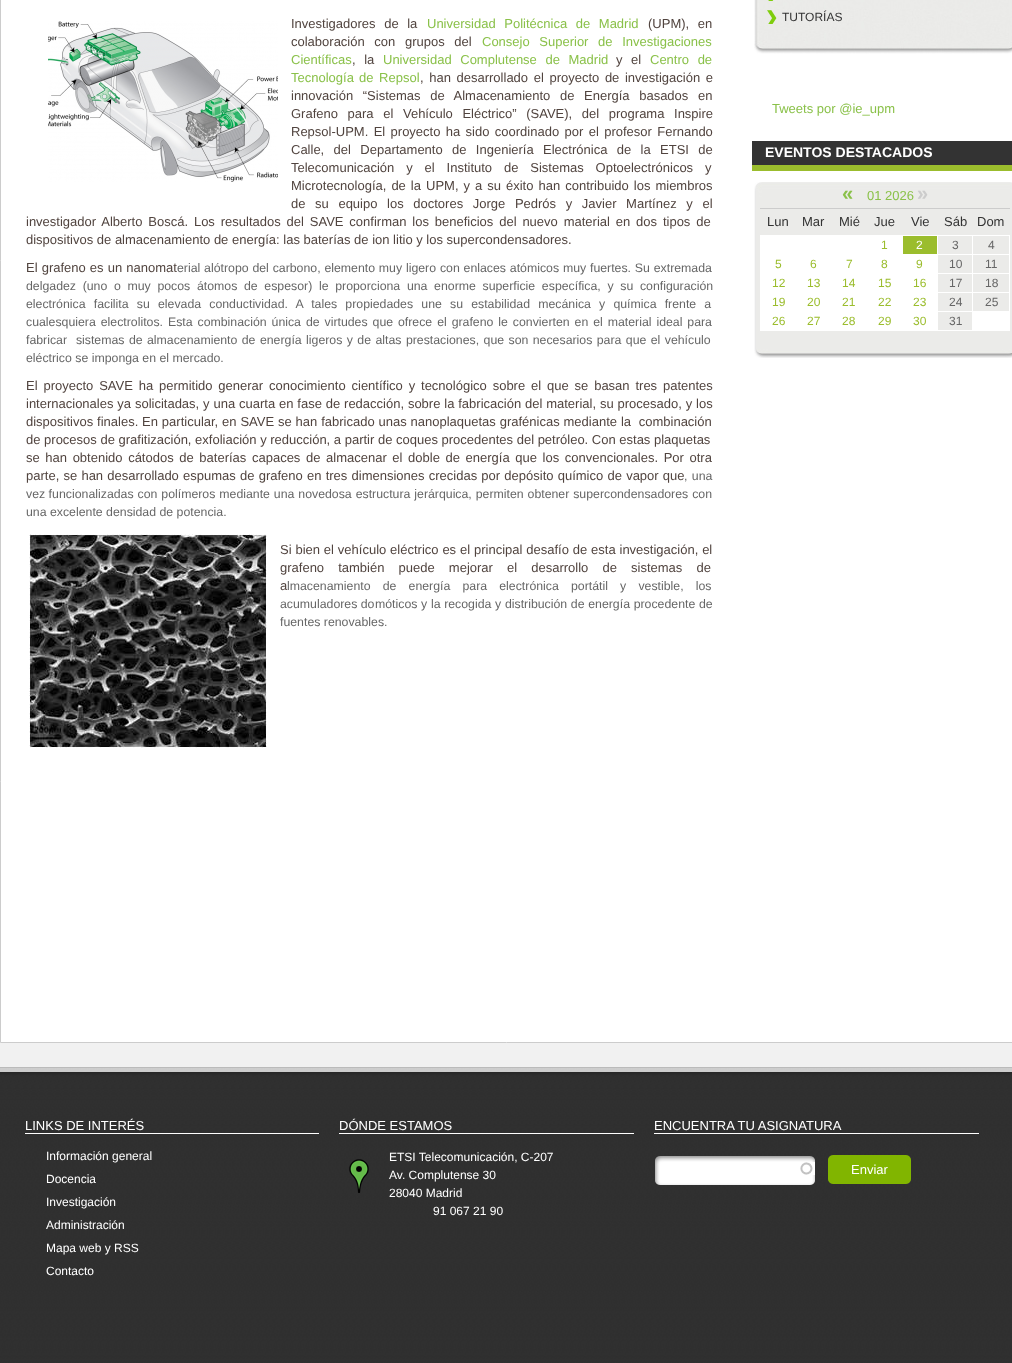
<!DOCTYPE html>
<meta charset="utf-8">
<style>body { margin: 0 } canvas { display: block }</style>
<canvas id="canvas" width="1012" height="1363"></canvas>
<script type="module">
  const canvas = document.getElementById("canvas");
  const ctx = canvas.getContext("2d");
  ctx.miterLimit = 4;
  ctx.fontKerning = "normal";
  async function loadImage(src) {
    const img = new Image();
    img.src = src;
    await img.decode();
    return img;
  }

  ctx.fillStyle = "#f1f1f1";
  ctx.fillRect(0, 0, 1012, 1363);
  ctx.fillStyle = "#ffffff";
  ctx.beginPath();
  ctx.rect(0.5, -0.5, 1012, 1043);
  ctx.fill();
  ctx.strokeStyle = "#cccccc";
  ctx.stroke();
  ctx.wordSpacing = "5px";
  ctx.font = "13px Liberation Sans";
  ctx.fillStyle = "#51443f";
  ctx.fillText("Investigadores de la", 291, 28);
  ctx.fillStyle = "#8ac149";
  ctx.fillText("Universidad Politécnica de Madrid", 427, 28);
  ctx.fillStyle = "#51443f";
  ctx.fillText("(UPM), en", 648, 28);
  ctx.wordSpacing = "6px";
  ctx.fillText("colaboración con grupos del", 291, 46);
  ctx.fillStyle = "#8ac149";
  ctx.fillText("Consejo Superior de Investigaciones", 482, 46);
  ctx.wordSpacing = "0px";
  ctx.fillText("Científicas", 291, 64);
  ctx.wordSpacing = "5px";
  ctx.fillStyle = "#51443f";
  ctx.fillText(", la", 352, 64);
  ctx.fillStyle = "#8ac149";
  ctx.fillText("Universidad Complutense de Madrid", 383, 64);
  ctx.fillStyle = "#51443f";
  ctx.fillText("y el", 616, 64);
  ctx.fillStyle = "#8ac149";
  ctx.fillText("Centro de", 650, 64);
  ctx.wordSpacing = "0px";
  ctx.fillText("Tecnología", 291, 82);
  ctx.wordSpacing = "2px";
  ctx.fillText("de Repsol", 359, 82);
  ctx.fillStyle = "#51443f";
  ctx.fillText(", han desarrollado el proyecto de investigación e", 420, 82);
  ctx.wordSpacing = "6px";
  ctx.fillText("innovación “Sistemas de Almacenamiento de Energía basados en", 291, 100);
  ctx.fillText("Grafeno para el Vehículo Eléctrico” (SAVE), del programa Inspire", 291, 118);
  ctx.wordSpacing = "1.75px";
  ctx.fillText("Repsol-UPM. El proyecto ha sido coordinado por el profesor Fernando", 291, 136);
  ctx.wordSpacing = "5.75px";
  ctx.fillText("Calle, del Departamento de Ingeniería Electrónica de la ETSI de", 291, 154);
  ctx.wordSpacing = "8.25px";
  ctx.fillText("Telecomunicación y el Instituto de Sistemas Optoelectrónicos y", 291, 172);
  ctx.wordSpacing = "1.4px";
  ctx.fillText("Microtecnología, de la UPM, y a su éxito han contribuido los miembros", 291, 190);
  ctx.wordSpacing = "6px";
  ctx.fillText("de su equipo los doctores Jorge Pedrós y Javier Martínez y el", 291, 208);
  ctx.wordSpacing = "2.25px";
  ctx.fillText("investigador Alberto Boscá. Los resultados del SAVE confirman los beneficios del nuevo material en dos tipos de", 26, 226);
  ctx.wordSpacing = "0px";
  ctx.fillText("dispositivos de almacenamiento de energía: las baterías de ion litio y los supercondensadores.", 26, 244);
  ctx.drawImage(await loadImage("img1.png"), 48, 21, 230, 161);
  ctx.wordSpacing = "0.5px";
  ctx.fillText("El grafeno es un nanomat", 26, 272);
  ctx.wordSpacing = "0.4px";
  ctx.font = "12.32px Liberation Sans";
  ctx.fillStyle = "#666666";
  ctx.fillText("erial alótropo del carbono, elemento muy ligero con enlaces atómicos muy fuertes. Su extremada", 177, 272);
  ctx.wordSpacing = "3.25px";
  ctx.fillText("delgadez (uno o muy pocos átomos de espesor) le proporciona una enorme superficie específica, y su configuración", 26, 290);
  ctx.wordSpacing = "4.75px";
  ctx.fillText("electrónica facilita su elevada conductividad. A tales propiedades une su estabilidad mecánica y química frente a", 26, 308);
  ctx.wordSpacing = "1.5px";
  ctx.fillText("cualesquiera electrolitos. Esta combinación única de virtudes que ofrece el grafeno le convierten en el material ideal para", 26, 326);
  ctx.wordSpacing = "1px";
  ctx.fillText("fabricar  sistemas de almacenamiento de energía ligeros y de altas prestaciones, que son necesarios para que el vehículo", 26, 344);
  ctx.wordSpacing = "0px";
  ctx.fillText("eléctrico se imponga en el mercado.", 26, 362);
  ctx.wordSpacing = "2.25px";
  ctx.font = "13px Liberation Sans";
  ctx.fillStyle = "#51443f";
  ctx.fillText("El proyecto SAVE ha permitido generar conocimiento científico y tecnológico sobre el que se basan tres patentes", 26, 390);
  ctx.wordSpacing = "0.25px";
  ctx.fillText("internacionales ya solicitadas, y una cuarta en fase de redacción, sobre la fabricación del material, su procesado, y los", 26, 408);
  ctx.fillText("dispositivos finales. En particular, en SAVE se han fabricado unas nanoplaquetas grafénicas mediante la  combinación", 26, 426);
  ctx.wordSpacing = "0px";
  ctx.fillText("de procesos de grafitización, exfoliación y reducción, a partir de coques procedentes del petróleo. Con estas plaquetas", 26, 444);
  ctx.wordSpacing = "2px";
  ctx.fillText("se han obtenido cátodos de baterías capaces de almacenar el doble de energía que los convencionales. Por otra", 26, 462);
  ctx.wordSpacing = "0.6px";
  ctx.fillText("parte, se han desarrollado espumas de grafeno en tres dimensiones crecidas por depósito químico de vapor que", 26, 480);
  ctx.wordSpacing = "1px";
  ctx.font = "12.32px Liberation Sans";
  ctx.fillStyle = "#666666";
  ctx.fillText(", una", 684, 480);
  ctx.wordSpacing = "0px";
  ctx.fillText("vez fu", 26, 498);
  ctx.wordSpacing = "0.5px";
  ctx.fillText("ncionalizadas con polímeros mediante una novedosa estructura jerárquica, permiten obtener supercondensadores con", 59, 498);
  ctx.wordSpacing = "0px";
  ctx.fillText("una excelente densidad de potencia.", 26, 516);
  ctx.drawImage(await loadImage("img2.png"), 29, 534, 238, 214);
  ctx.wordSpacing = "0.25px";
  ctx.font = "13px Liberation Sans";
  ctx.fillStyle = "#51443f";
  ctx.fillText("Si bien el vehículo eléctrico es el principal desafío de esta investigación, el", 280, 554);
  ctx.wordSpacing = "10.5px";
  ctx.fillText("grafeno también puede mejorar el desarrollo de sistemas de", 280, 572);
  ctx.wordSpacing = "0px";
  ctx.fillText("a", 280, 590);
  ctx.wordSpacing = "8.75px";
  ctx.font = "12.32px Liberation Sans";
  ctx.fillStyle = "#666666";
  ctx.fillText("lmacenamiento de energía para electrónica portátil y vestible, los", 287, 590);
  ctx.wordSpacing = "0px";
  ctx.fillText("acumuladores do", 280, 608);
  ctx.wordSpacing = "0.25px";
  ctx.fillText("móticos y la recogida y distribución de energía procedente de", 375, 608);
  ctx.wordSpacing = "0px";
  ctx.fillText("fuentes renovables.", 280, 626);
  ctx.drawImage(await loadImage("img3.png"), 754, 0, 258, 9);
  ctx.drawImage(await loadImage("img4.png"), 768, 0, 6, 1);
  ctx.drawImage(await loadImage("img5.png"), 754, 9, 258, 45);
  ctx.drawImage(await loadImage("img6.png"), 767, 10, 10, 14);
  ctx.font = "12px Liberation Sans";
  ctx.fillStyle = "#333333";
  ctx.fillText("TUTORÍAS", 782, 21);
  ctx.font = "13px Liberation Sans";
  ctx.fillStyle = "#8ac149";
  ctx.fillText("Tweets por @ie_upm", 772, 113);
  ctx.fillStyle = "#333333";
  ctx.fillRect(752, 141, 260, 24);
  ctx.fillStyle = "#9bbd2d";
  ctx.fillRect(752, 165, 260, 6);
  ctx.font = "bold 14px Liberation Sans";
  ctx.fillStyle = "#ffffff";
  ctx.fillText("EVENTOS DESTACADOS", 765, 157);
  ctx.drawImage(await loadImage("img7.png"), 754, 182, 258, 176);
  ctx.fillStyle = "#cccccc";
  ctx.fillRect(760, 208, 250, 1);
  ctx.font = "bold 20px Liberation Sans";
  ctx.fillStyle = "#8ac149";
  ctx.fillText("«", 842, 200);
  ctx.font = "13px Liberation Sans";
  ctx.fillText("01 2026", 867, 200);
  ctx.font = "bold 20px Liberation Sans";
  ctx.fillStyle = "#cccccc";
  ctx.fillText("»", 917, 200);
  ctx.font = "13px Liberation Sans";
  ctx.fillStyle = "#333333";
  ctx.fillText("Lun", 767, 226);
  ctx.fillText("Mar", 802, 226);
  ctx.fillText("Mié", 839, 226);
  ctx.fillText("Jue", 874, 226);
  ctx.fillText("Vie", 911, 226);
  ctx.fillText("Sáb", 944, 226);
  ctx.fillText("Dom", 977, 226);
  ctx.fillStyle = "#ffffff";
  ctx.fillRect(761, 235, 141, 19);
  ctx.fillRect(1009, 311, 1, 20);
  ctx.fillRect(760, 330, 250, 1);
  ctx.fillRect(760, 311, 1, 20);
  ctx.fillRect(760, 292, 1, 20);
  ctx.fillRect(760, 273, 1, 20);
  ctx.fillRect(760, 254, 1, 20);
  ctx.fillRect(760, 235, 1, 20);
  ctx.font = "12px Liberation Sans";
  ctx.fillStyle = "#9bbd2d";
  ctx.fillText("1", 881, 249);
  ctx.fillRect(903, 236, 34, 18);
  ctx.fillStyle = "#ffffff";
  ctx.fillRect(972, 235, 38, 1);
  ctx.fillRect(761, 254, 177, 57);
  ctx.fillRect(972, 254, 38, 1);
  ctx.fillRect(972, 273, 38, 1);
  ctx.fillRect(972, 292, 38, 1);
  ctx.fillRect(761, 311, 248, 19);
  ctx.fillRect(972, 292, 1, 20);
  ctx.fillRect(937, 292, 36, 1);
  ctx.fillRect(972, 273, 1, 20);
  ctx.fillRect(937, 273, 36, 1);
  ctx.fillRect(972, 254, 1, 20);
  ctx.fillRect(937, 254, 36, 1);
  ctx.fillRect(972, 235, 1, 20);
  ctx.fillRect(937, 235, 36, 1);
  ctx.fillRect(937, 235, 1, 20);
  ctx.fillRect(902, 235, 36, 1);
  ctx.fillRect(902, 235, 1, 20);
  ctx.fillText("2", 916, 249);
  ctx.fillStyle = "#666666";
  ctx.fillText("3", 952, 249);
  ctx.fillStyle = "#ffffff";
  ctx.fillRect(1009, 292, 1, 20);
  ctx.fillRect(1009, 273, 1, 20);
  ctx.fillRect(1009, 254, 1, 20);
  ctx.fillRect(1009, 235, 1, 20);
  ctx.fillStyle = "#666666";
  ctx.fillText("4", 988, 249);
  ctx.fillStyle = "#9bbd2d";
  ctx.fillText("5", 775, 268);
  ctx.fillText("6", 810, 268);
  ctx.fillText("7", 846, 268);
  ctx.fillText("8", 881, 268);
  ctx.fillText("9", 916, 268);
  ctx.fillStyle = "#666666";
  ctx.fillText("10", 949, 268);
  ctx.fillText("11", 985, 268);
  ctx.fillStyle = "#9bbd2d";
  ctx.fillText("12", 772, 287);
  ctx.fillText("13", 807, 287);
  ctx.fillText("14", 842, 287);
  ctx.fillText("15", 878, 287);
  ctx.fillText("16", 913, 287);
  ctx.fillStyle = "#666666";
  ctx.fillText("17", 949, 287);
  ctx.fillText("18", 985, 287);
  ctx.fillStyle = "#9bbd2d";
  ctx.fillText("19", 772, 306);
  ctx.fillText("20", 807, 306);
  ctx.fillText("21", 842, 306);
  ctx.fillText("22", 878, 306);
  ctx.fillText("23", 913, 306);
  ctx.fillStyle = "#666666";
  ctx.fillText("24", 949, 306);
  ctx.fillText("25", 985, 306);
  ctx.fillStyle = "#9bbd2d";
  ctx.fillText("26", 772, 325);
  ctx.fillText("27", 807, 325);
  ctx.fillText("28", 842, 325);
  ctx.fillText("29", 878, 325);
  ctx.fillText("30", 913, 325);
  ctx.fillStyle = "#ebebe9";
  ctx.fillRect(938, 312, 34, 18);
  ctx.fillStyle = "#666666";
  ctx.fillText("31", 949, 325);
  ctx.drawImage(await loadImage("img8.png"), 0, 1068, 1012, 295);
  ctx.fillStyle = "#bbbbbb";
  ctx.fillRect(0, 1067, 1012, 1);
  ctx.fillStyle = "#ffffff";
  ctx.fillRect(25, 1133, 294, 1);
  ctx.font = "13px Liberation Sans";
  ctx.fillText("LINKS DE INTERÉS", 25, 1130);
  ctx.font = "12px Liberation Sans";
  ctx.fillText("Información general", 46, 1160);
  ctx.fillText("Docencia", 46, 1183);
  ctx.fillText("Investigación", 46, 1206);
  ctx.fillText("Administración", 46, 1229);
  ctx.fillText("Mapa web y RSS", 46, 1252);
  ctx.fillText("Contacto", 46, 1275);
  ctx.fillRect(339, 1133, 295, 1);
  ctx.font = "13px Liberation Sans";
  ctx.fillText("DÓNDE ESTAMOS", 339, 1130);
  ctx.font = "12px Liberation Sans";
  ctx.fillText("ETSI Telecomunicación, C-207", 389, 1161);
  ctx.drawImage(await loadImage("img9.png"), 349, 1159, 20, 34);
  ctx.fillText("Av. Complutense 30", 389, 1179);
  ctx.fillText("28040 Madrid", 389, 1197);
  ctx.fillText("91 067 21 90", 433, 1215);
  ctx.fillRect(654, 1133, 325, 1);
  ctx.font = "13px Liberation Sans";
  ctx.fillText("ENCUENTRA TU ASIGNATURA", 654, 1130);
  ctx.drawImage(await loadImage("img10.png"), 655, 1156, 160, 29);
  ctx.drawImage(await loadImage("img11.png"), 800, 1162, 15, 13);
  ctx.drawImage(await loadImage("img12.png"), 828, 1155, 83, 29);
  ctx.fillText("Enviar", 851, 1174);
</script>
